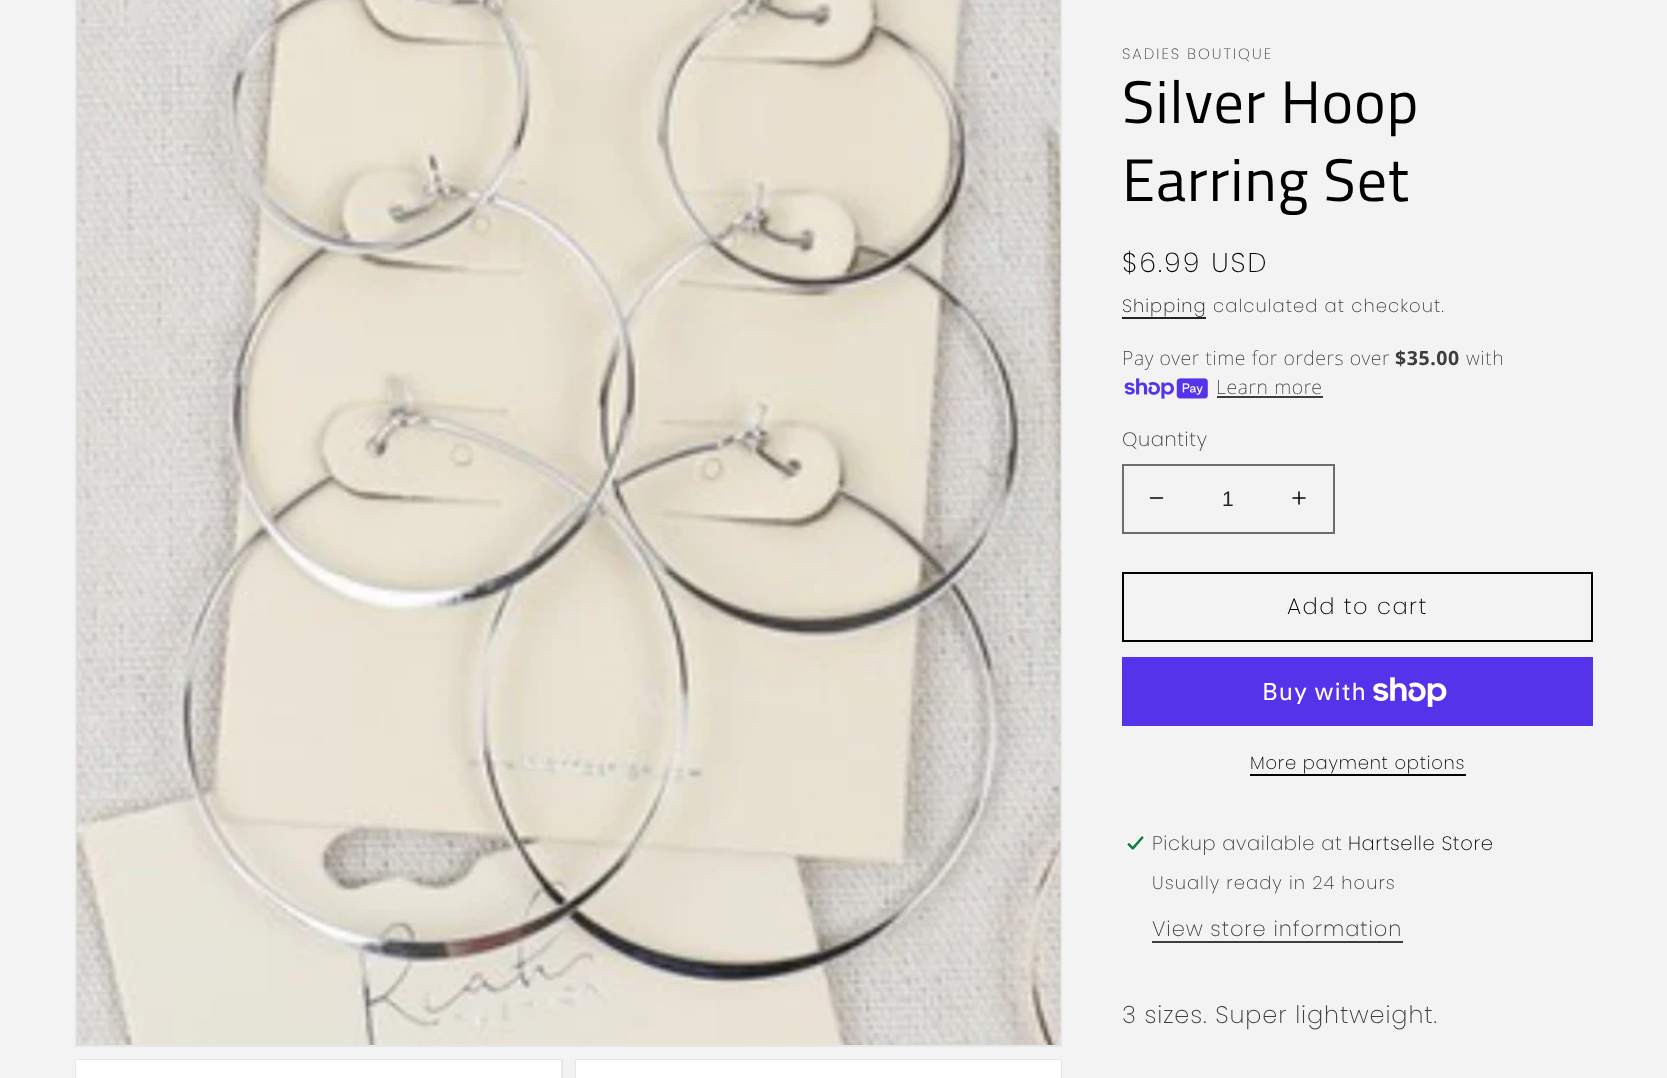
<!DOCTYPE html>
<meta charset="utf-8">
<style>body { margin: 0 } canvas { display: block }</style>
<canvas id="canvas" width="1667" height="1078"></canvas>
<script type="module">
  const canvas = document.getElementById("canvas");
  const ctx = canvas.getContext("2d");
  ctx.miterLimit = 4;
  ctx.fontKerning = "normal";
  async function loadImage(src) {
    const img = new Image();
    img.src = src;
    await img.decode();
    return img;
  }

  ctx.fillStyle = "#f3f3f3";
  ctx.fillRect(0, 0, 1667, 1078);
  ctx.strokeStyle = "#e7e7e7";
  ctx.lineWidth = 2;
  ctx.strokeRect(76, -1, 985, 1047);
  ctx.drawImage(await loadImage("img1.png"), 76, 0, 985, 1045);
  ctx.strokeRect(76, 1060, 486, 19);
  ctx.fillStyle = "#ffffff";
  ctx.fillRect(76, 1060, 485, 18);
  ctx.strokeRect(576, 1060, 485, 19);
  ctx.fillRect(576, 1060, 485, 18);
  ctx.letterSpacing = "2px";
  ctx.font = "300 15px Poppins";
  ctx.fillStyle = "#3d3d3d";
  ctx.fillText("SADIES BOUTIQUE", 1122, 59);
  ctx.letterSpacing = "0.9px";
  ctx.font = "60px Titillium Web";
  ctx.fillStyle = "#000000";
  ctx.fillText("Silver Hoop", 1122, 123);
  ctx.fillText("Earring Set", 1122, 201);
  ctx.letterSpacing = "2px";
  ctx.font = "300 27px Poppins";
  ctx.fillText("$6.99 USD", 1122, 272);
  ctx.letterSpacing = "1.05px";
  ctx.font = "300 18px Poppins";
  ctx.fillStyle = "#242424";
  ctx.fillText("Shipping", 1122, 312);
  ctx.fillRect(1122, 317, 84, 2);
  ctx.fillStyle = "#3d3d3d";
  ctx.fillText("calculated at checkout.", 1213, 312);
  ctx.letterSpacing = "0.6px";
  ctx.font = "200 19.5px Noto Sans";
  ctx.fillText("Pay over time for orders over", 1122, 365);
  ctx.font = "bold 19.5px Noto Sans";
  ctx.fillText("$35.00", 1395, 365);
  ctx.font = "200 19.5px Noto Sans";
  ctx.fillText("with", 1466, 365);
  ctx.drawImage(await loadImage("img2.png"), 1124, 378, 84, 21);
  ctx.fillText("Learn more", 1216, 394);
  ctx.fillRect(1217, 396, 106, 2);
  ctx.font = "300 19.5px Poppins";
  ctx.fillText("Quantity", 1122, 446);
  ctx.drawImage(await loadImage("img3.png"), 1149, 497, 15, 2);
  ctx.drawImage(await loadImage("img4.png"), 1292, 491, 14, 14);
  ctx.strokeStyle = "#6d6d6d";
  ctx.strokeRect(1123, 465, 211, 68);
  ctx.letterSpacing = "0px";
  ctx.font = "21px Liberation Sans";
  ctx.fillStyle = "#242424";
  ctx.fillText("1", 1222, 506);
  ctx.strokeStyle = "#000000";
  ctx.strokeRect(1123, 573, 469, 68);
  ctx.letterSpacing = "1.5px";
  ctx.font = "300 22.5px Poppins";
  ctx.fillStyle = "#000000";
  ctx.fillText("Add to cart", 1287, 614);
  ctx.fillStyle = "#5433eb";
  ctx.fillRect(1122, 657, 471, 69);
  ctx.letterSpacing = "0.9px";
  ctx.font = "24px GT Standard";
  ctx.fillStyle = "#ffffff";
  ctx.fillText("Buy with", 1262, 700);
  ctx.drawImage(await loadImage("img5.png"), 1373, 677, 74, 30);
  ctx.letterSpacing = "0.75px";
  ctx.font = "300 18px Poppins";
  ctx.fillStyle = "#000000";
  ctx.fillText("More payment options", 1250, 769);
  ctx.fillRect(1250, 774, 216, 2);
  ctx.drawImage(await loadImage("img6.png"), 1126, 835, 19, 16);
  ctx.letterSpacing = "0.6px";
  ctx.font = "300 19.5px Poppins";
  ctx.fillStyle = "#3d3d3d";
  ctx.fillText("Pickup available at", 1152, 850);
  ctx.fillStyle = "#000000";
  ctx.fillText("Hartselle Store", 1348, 850);
  ctx.letterSpacing = "1.05px";
  ctx.font = "300 18px Poppins";
  ctx.fillStyle = "#3d3d3d";
  ctx.fillText("Usually ready in 24 hours", 1152, 889);
  ctx.letterSpacing = "0.9px";
  ctx.font = "300 21px Poppins";
  ctx.fillText("View store information", 1152, 936);
  ctx.fillRect(1152, 941, 251, 2);
  ctx.font = "300 24px Poppins";
  ctx.fillText("3 sizes. Super lightweight.", 1122, 1023);
</script>
